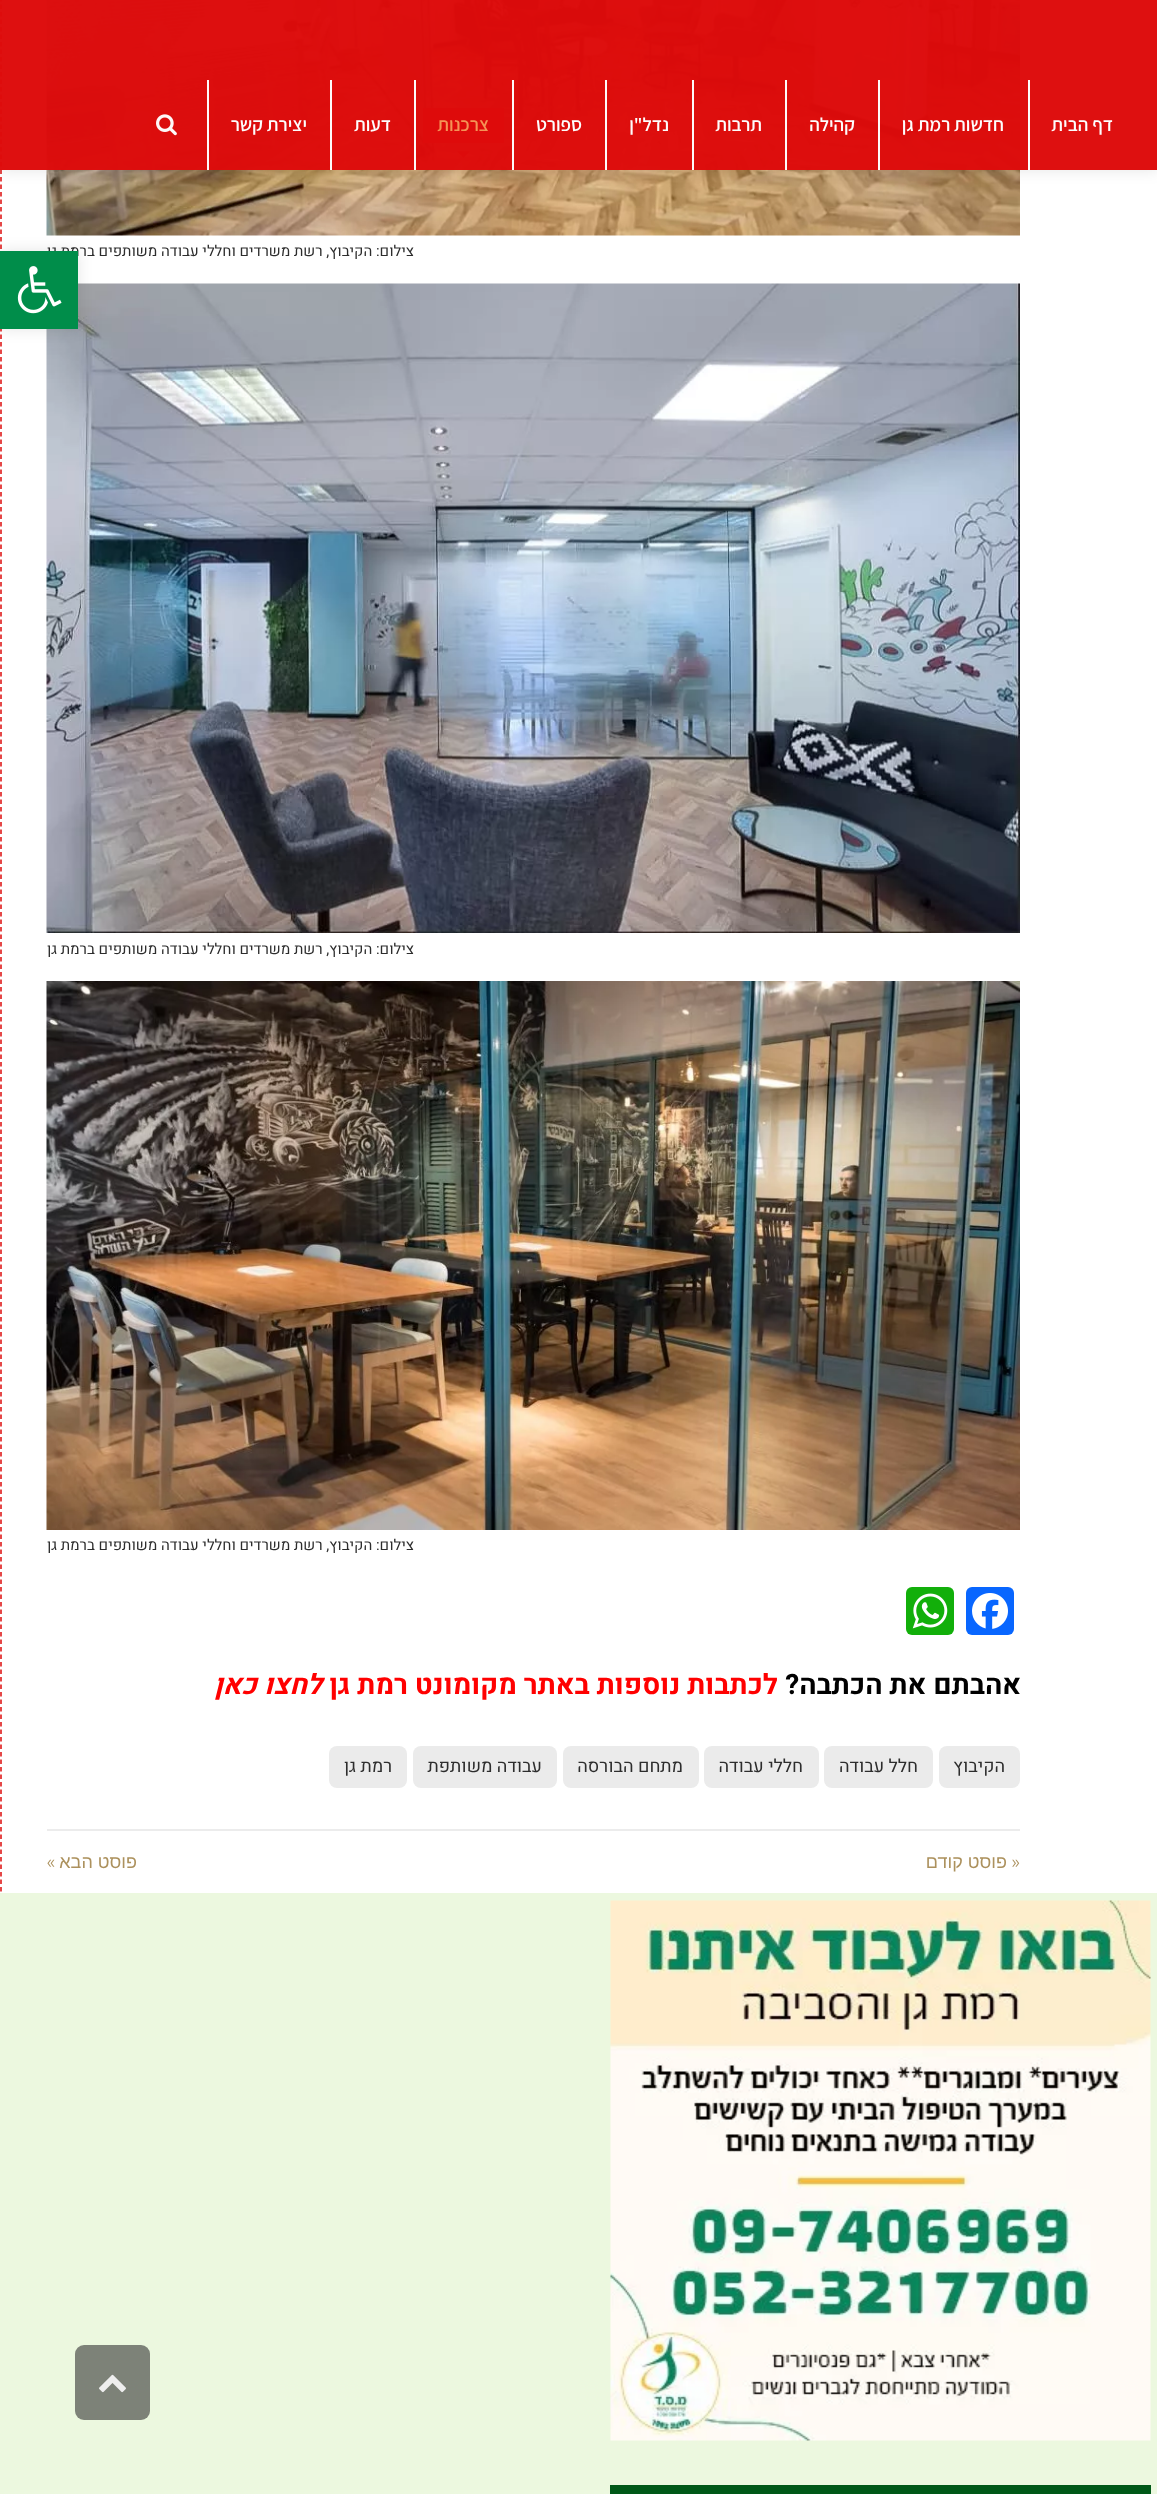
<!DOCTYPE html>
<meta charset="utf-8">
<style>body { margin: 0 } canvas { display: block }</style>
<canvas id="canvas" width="1157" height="2494"></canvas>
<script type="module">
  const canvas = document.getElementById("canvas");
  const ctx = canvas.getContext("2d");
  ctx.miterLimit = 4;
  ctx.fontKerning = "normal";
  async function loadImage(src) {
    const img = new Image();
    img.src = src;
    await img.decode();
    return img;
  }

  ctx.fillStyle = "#ffffff";
  ctx.fillRect(0, 0, 1157, 2494);
  ctx.beginPath();
  ctx.moveTo(1, -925.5);
  ctx.lineTo(1, 1893);
  ctx.strokeStyle = "#dd0b0b";
  ctx.lineWidth = 1.5;
  ctx.setLineDash([4.5, 3]);
  ctx.stroke();
  ctx.drawImage(await loadImage("img2.png"), 46, 0, 974, 236);
  ctx.save();
  ctx.beginPath();
  ctx.moveTo(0, 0);
  ctx.lineTo(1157, 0);
  ctx.lineTo(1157, 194);
  ctx.lineTo(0, 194);
  ctx.closePath();
  ctx.moveTo(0, 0);
  ctx.lineTo(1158, 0);
  ctx.lineTo(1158, 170);
  ctx.lineTo(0, 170);
  ctx.closePath();
  ctx.clip("evenodd");
  ctx.fillStyle = "rgba(0, 0, 0, 0.1)";
  ctx.filter = "blur(7.5px)";
  ctx.beginPath();
  ctx.rect(0, 0, 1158, 170);
  ctx.fill();
  ctx.filter = "none";
  ctx.restore();
  ctx.fillStyle = "rgba(221, 11, 11, 0.98)";
  ctx.fillRect(0, 0, 1157, 170);
  ctx.fillStyle = "#ffffff";
  ctx.fillRect(1028, 80, 2, 90);
  ctx.direction = "rtl";
  ctx.font = "600 19px Assistant";
  ctx.fillStyle = "#fefdfd";
  ctx.fillText("דף הבית", 1113, 131);
  ctx.fillStyle = "rgba(255, 255, 255, 0.98)";
  ctx.fillRect(878, 80, 2, 90);
  ctx.fillStyle = "#fefdfd";
  ctx.fillText("חדשות רמת גן", 1004, 131);
  ctx.fillStyle = "#fefafa";
  ctx.fillRect(785, 80, 2, 90);
  ctx.fillStyle = "#fefdfd";
  ctx.fillText("קהילה", 855, 131);
  ctx.fillStyle = "#fefafa";
  ctx.fillRect(692, 80, 2, 90);
  ctx.fillStyle = "#fefdfd";
  ctx.fillText("תרבות", 762, 131);
  ctx.fillStyle = "#fefafa";
  ctx.fillRect(605, 80, 2, 90);
  ctx.fillStyle = "#fefdfd";
  ctx.fillText("נדל\"ן", 669, 131);
  ctx.fillStyle = "#fefafa";
  ctx.fillRect(512, 80, 2, 90);
  ctx.fillStyle = "#fefdfd";
  ctx.fillText("ספורט", 582, 131);
  ctx.fillStyle = "#fefafa";
  ctx.fillRect(414, 80, 2, 90);
  ctx.fillStyle = "rgba(221, 11, 11, 0.98)";
  ctx.fillRect(423, 108, 81, 35);
  ctx.fillStyle = "#f49356";
  ctx.fillText("צרכנות", 489, 131);
  ctx.fillStyle = "#dd0b0b";
  ctx.beginPath();
  ctx.moveTo(457.5, 151.5);
  ctx.lineTo(469.5, 151.5);
  ctx.lineTo(463.5, 157.5);
  ctx.closePath();
  ctx.fill();
  ctx.fillStyle = "#fefafa";
  ctx.fillRect(330, 80, 2, 90);
  ctx.fillStyle = "#fefdfd";
  ctx.fillText("דעות", 391, 131);
  ctx.fillStyle = "#fefafa";
  ctx.fillRect(207, 80, 2, 90);
  ctx.fillStyle = "#fefdfd";
  ctx.fillText("יצירת קשר", 307, 131);
  ctx.drawImage(await loadImage("img1.png"), 156, 114, 21, 22);
  ctx.font = "15px Heebo";
  ctx.fillStyle = "#2d2d2d";
  ctx.fillText("צילום: הקיבוץ, רשת משרדים וחללי עבודה משותפים ברמת גן", 414, 256);
  ctx.drawImage(await loadImage("img3.png"), 46, 283, 974, 650);
  ctx.fillText("צילום: הקיבוץ, רשת משרדים וחללי עבודה משותפים ברמת גן", 414, 954);
  ctx.drawImage(await loadImage("img4.png"), 46, 981, 974, 549);
  ctx.fillText("צילום: הקיבוץ, רשת משרדים וחללי עבודה משותפים ברמת גן", 414, 1550);
  ctx.fillStyle = "#0866ff";
  ctx.beginPath();
  ctx.roundRect(966, 1587, 48, 48, 6);
  ctx.fill();
  ctx.drawImage(await loadImage("img5.png"), 972, 1593, 36, 36);
  ctx.fillStyle = "#12af0a";
  ctx.beginPath();
  ctx.roundRect(906, 1587, 48, 48, 6);
  ctx.fill();
  ctx.drawImage(await loadImage("img6.png"), 912, 1593, 36, 36);
  ctx.font = "bold 28px Heebo";
  ctx.fillStyle = "#000000";
  ctx.fillText("אהבתם את הכתבה?", 1021, 1694);
  ctx.fillStyle = "#ff0000";
  ctx.fillText("לכתבות נוספות באתר מקומונט רמת גן", 778, 1694);
  ctx.font = "italic bold 28px Heebo";
  ctx.fillText("לחצו כאן", 322, 1694);
  ctx.fillStyle = "#ebebeb";
  ctx.beginPath();
  ctx.roundRect(939, 1746, 81, 42, 8);
  ctx.fill();
  ctx.font = "18px Heebo";
  ctx.fillStyle = "#2d2d2d";
  ctx.fillText("הקיבוץ", 1005, 1772);
  ctx.fillStyle = "#ebebeb";
  ctx.beginPath();
  ctx.roundRect(824, 1746, 109, 42, 8);
  ctx.fill();
  ctx.fillStyle = "#2d2d2d";
  ctx.fillText("חלל עבודה", 918, 1772);
  ctx.fillStyle = "#ebebeb";
  ctx.beginPath();
  ctx.roundRect(704, 1746, 115, 42, 8);
  ctx.fill();
  ctx.fillStyle = "#2d2d2d";
  ctx.fillText("חללי עבודה", 803, 1772);
  ctx.fillStyle = "#ebebeb";
  ctx.beginPath();
  ctx.roundRect(563, 1746, 136, 42, 8);
  ctx.fill();
  ctx.fillStyle = "#2d2d2d";
  ctx.fillText("מתחם הבורסה", 683, 1772);
  ctx.fillStyle = "#ebebeb";
  ctx.beginPath();
  ctx.roundRect(413, 1746, 144, 42, 8);
  ctx.fill();
  ctx.fillStyle = "#2d2d2d";
  ctx.fillText("עבודה משותפת", 542, 1772);
  ctx.fillStyle = "#ebebeb";
  ctx.beginPath();
  ctx.roundRect(329, 1746, 78, 42, 8);
  ctx.fill();
  ctx.fillStyle = "#2d2d2d";
  ctx.fillText("רמת גן", 392, 1772);
  ctx.fillStyle = "#ececec";
  ctx.fillRect(47, 1829, 973, 2);
  ctx.font = "18px Montserrat";
  ctx.fillStyle = "#ac915d";
  ctx.fillText("«", 1020, 1868);
  ctx.font = "18px Liberation Sans";
  ctx.fillText("פוסט קודם", 1007, 1868);
  ctx.fillText("פוסט הבא", 137, 1868);
  ctx.font = "18px Montserrat";
  ctx.fillText("»", 55, 1868);
  ctx.fillStyle = "#ecf8df";
  ctx.fillRect(0, 1893, 1157, 601);
  ctx.drawImage(await loadImage("img7.png"), 610, 1900, 541, 541);
  ctx.fillStyle = "#005817";
  ctx.fillRect(610, 2485, 541, 9);
  ctx.fillStyle = "rgba(0, 0, 0, 0.1)";
  ctx.filter = "blur(7.5px)";
  ctx.beginPath();
  ctx.rect(0, 251, 78, 78);
  ctx.fill();
  ctx.filter = "none";
  ctx.fillStyle = "#008d4a";
  ctx.fillRect(0, 251, 78, 78);
  ctx.drawImage(await loadImage("img8.png"), 17, 266, 45, 48);
  ctx.fillStyle = "#7d8278";
  ctx.beginPath();
  ctx.roundRect(75, 2345, 75, 75, 9);
  ctx.fill();
  ctx.drawImage(await loadImage("img9.png"), 99, 2374, 27, 19);
</script>
